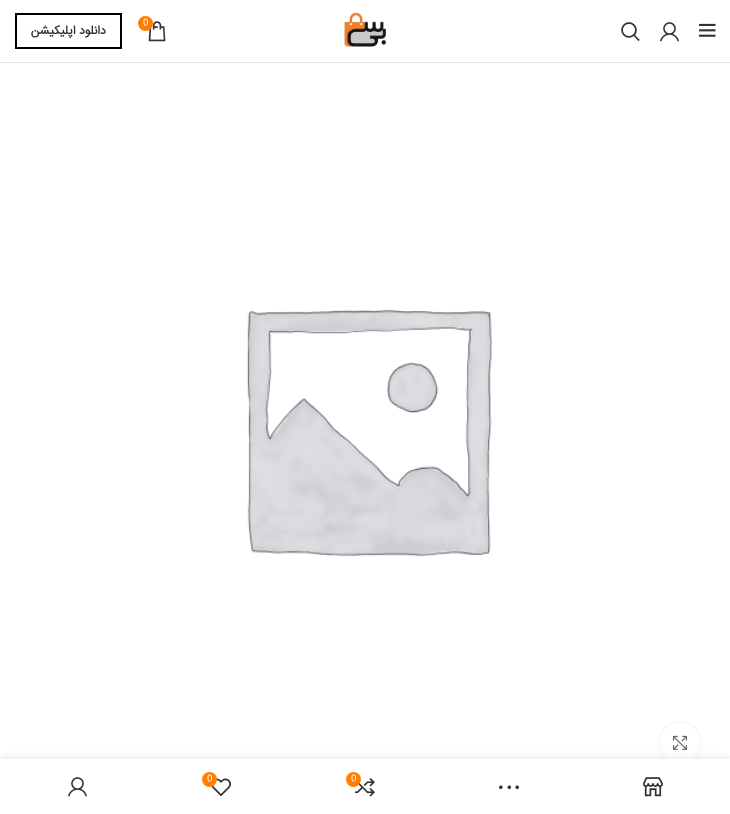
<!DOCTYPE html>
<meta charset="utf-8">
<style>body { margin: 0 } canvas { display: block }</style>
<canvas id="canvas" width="730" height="814"></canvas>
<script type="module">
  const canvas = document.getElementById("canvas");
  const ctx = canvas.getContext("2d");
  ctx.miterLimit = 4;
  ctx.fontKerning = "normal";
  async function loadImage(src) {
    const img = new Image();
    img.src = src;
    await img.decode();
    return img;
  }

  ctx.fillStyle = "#ffffff";
  ctx.fillRect(0, 0, 730, 814);
  ctx.fillStyle = "#e8e8e8";
  ctx.fillRect(0, 62, 730, 1);
  ctx.drawImage(await loadImage("img1.png"), 699, 23, 17, 14);
  ctx.drawImage(await loadImage("img2.png"), 660, 22, 19, 20);
  ctx.drawImage(await loadImage("img3.png"), 621, 22, 19, 20);
  ctx.drawImage(await loadImage("img4.png"), 344, 12, 42, 35);
  ctx.drawImage(await loadImage("img5.png"), 148, 21, 18, 21);
  ctx.fillStyle = "#ff7f00";
  ctx.beginPath();
  ctx.arc(145.5, 23.5, 7.5, 0, Math.PI * 2);
  ctx.fill();
  ctx.font = "9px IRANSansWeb";
  ctx.fillStyle = "#ffffff";
  ctx.fillText("0", 143, 25);
  ctx.strokeStyle = "#000000";
  ctx.lineWidth = 2;
  ctx.strokeRect(16, 14, 105, 34);
  ctx.direction = "rtl";
  ctx.font = "bold 12px IRANSansWeb";
  ctx.fillStyle = "#333333";
  ctx.fillText("دانلود اپلیکیشن", 106, 34);
  ctx.drawImage(await loadImage("img6.png"), 247, 309, 245, 248);
  ctx.fillStyle = "rgba(0, 0, 0, 0.08)";
  ctx.filter = "blur(2.5px)";
  ctx.beginPath();
  ctx.roundRect(660, 723, 40, 40, 20);
  ctx.fill();
  ctx.filter = "none";
  ctx.fillStyle = "#ffffff";
  ctx.beginPath();
  ctx.arc(680, 743, 20, 0, Math.PI * 2);
  ctx.fill();
  ctx.drawImage(await loadImage("img7.png"), 673, 735, 14, 15);
  ctx.fillStyle = "rgba(0, 0, 0, 0.12)";
  ctx.filter = "blur(4.5px)";
  ctx.beginPath();
  ctx.rect(0, 759, 730, 55);
  ctx.fill();
  ctx.filter = "none";
  ctx.fillStyle = "#ffffff";
  ctx.fillRect(0, 759, 730, 55);
  ctx.drawImage(await loadImage("img8.png"), 643, 777, 20, 20);
  ctx.drawImage(await loadImage("img9.png"), 499, 785, 20, 5);
  ctx.drawImage(await loadImage("img10.png"), 355, 778, 20, 19);
  ctx.fillStyle = "#ff7f00";
  ctx.beginPath();
  ctx.arc(353.5, 779.5, 7.5, 0, Math.PI * 2);
  ctx.fill();
  ctx.direction = "ltr";
  ctx.font = "9px IRANSansWeb";
  ctx.fillStyle = "#ffffff";
  ctx.fillText("0", 351, 781);
  ctx.drawImage(await loadImage("img11.png"), 211, 778, 20, 18);
  ctx.fillStyle = "#ff7f00";
  ctx.beginPath();
  ctx.arc(209.5, 779.5, 7.5, 0, Math.PI * 2);
  ctx.fill();
  ctx.fillStyle = "#ffffff";
  ctx.fillText("0", 207, 781);
  ctx.drawImage(await loadImage("img2.png"), 68, 777, 19, 20);
</script>
